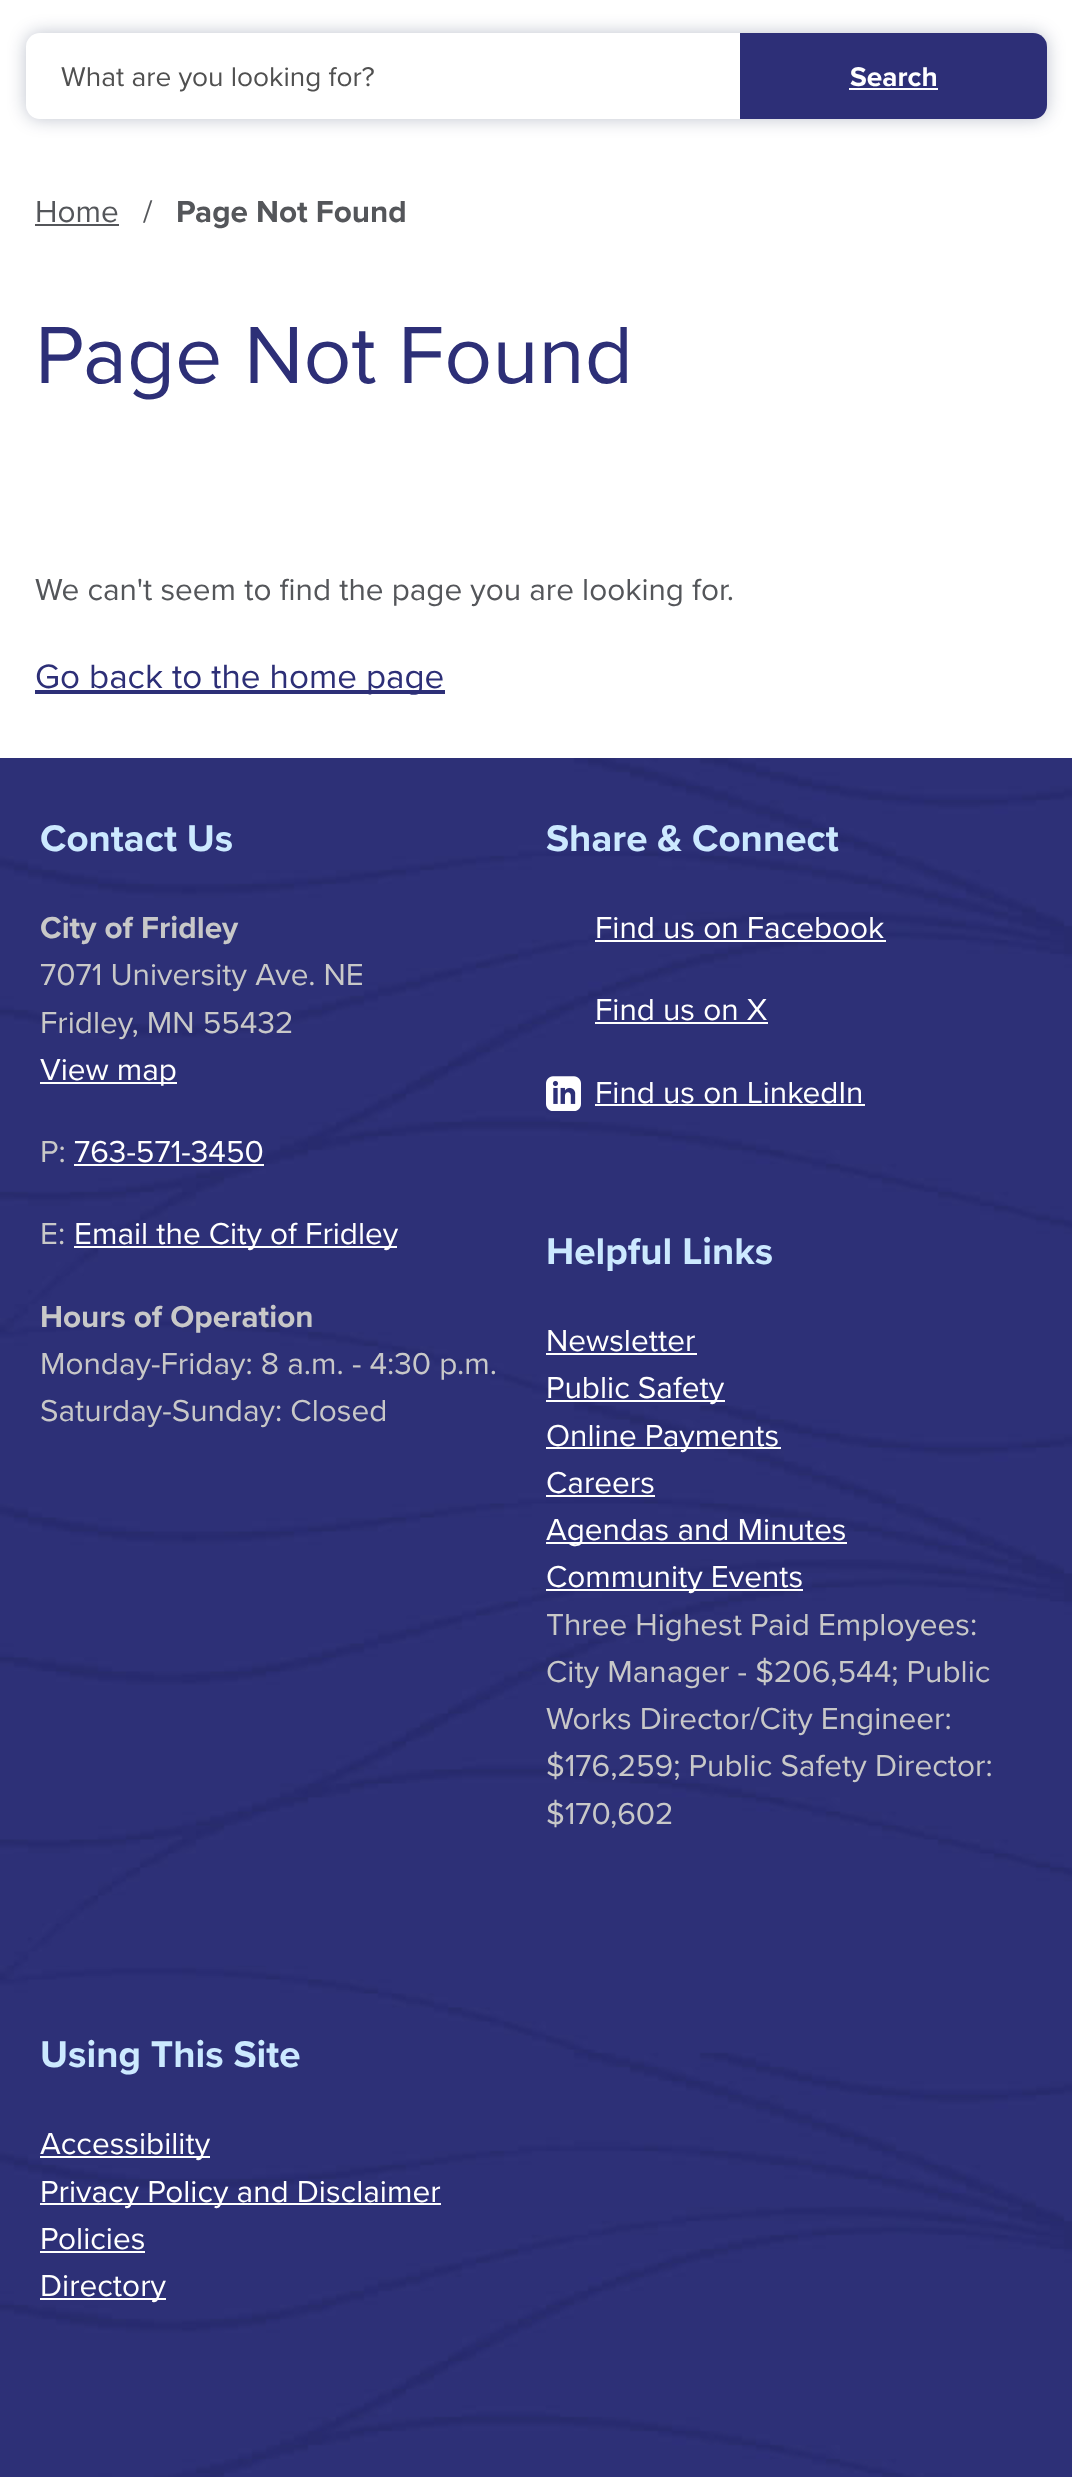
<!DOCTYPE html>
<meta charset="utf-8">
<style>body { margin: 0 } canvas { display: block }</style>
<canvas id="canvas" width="1072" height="2477"></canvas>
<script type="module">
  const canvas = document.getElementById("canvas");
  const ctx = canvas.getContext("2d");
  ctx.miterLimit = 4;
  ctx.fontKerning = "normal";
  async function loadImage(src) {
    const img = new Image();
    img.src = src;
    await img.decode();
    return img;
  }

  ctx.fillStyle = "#ffffff";
  ctx.fillRect(0, 0, 1072, 2477);
  ctx.fillStyle = "rgba(0, 16, 58, 0.25)";
  ctx.filter = "blur(9px)";
  ctx.beginPath();
  ctx.roundRect(26, 33, 1021, 86, 14);
  ctx.fill();
  ctx.filter = "none";
  ctx.fillStyle = "#ffffff";
  ctx.beginPath();
  ctx.roundRect(26, 33, 714, 86, [14, 0, 0, 14]);
  ctx.fill();
  ctx.font = "28px Proxima Nova";
  ctx.fillStyle = "#505050";
  ctx.fillText("What are you looking for?", 61, 86);
  ctx.fillStyle = "#2d2f77";
  ctx.beginPath();
  ctx.roundRect(740, 33, 307, 86, [0, 14, 14, 0]);
  ctx.fill();
  ctx.font = "bold 28px Proxima Nova";
  ctx.fillStyle = "#ffffff";
  ctx.fillText("Search", 850, 86);
  ctx.fillRect(849, 88, 89, 2);
  ctx.font = "31.5px Proxima Nova";
  ctx.fillStyle = "#54565a";
  ctx.fillText("Home", 35, 222);
  ctx.fillRect(35, 224, 84, 2);
  ctx.fillText("/", 143, 222);
  ctx.font = "bold 31.5px Proxima Nova";
  ctx.fillText("Page Not Found", 176, 222);
  ctx.font = "84px Proxima Nova";
  ctx.fillStyle = "#2d2f77";
  ctx.fillText("Page Not Found", 35, 383);
  ctx.font = "31.5px Proxima Nova";
  ctx.fillStyle = "#54565a";
  ctx.fillText("We can't seem to find the page you are looking for.", 35, 600);
  ctx.fillStyle = "#2d2f77";
  ctx.fillRect(35, 690, 410, 4);
  ctx.font = "35px Proxima Nova";
  ctx.fillText("Go back to the home page", 35, 688);
  ctx.drawImage(await loadImage("img1.png"), 0, 758, 1072, 1719);
  ctx.font = "bold 38.5px Proxima Nova";
  ctx.fillStyle = "#cce9ff";
  ctx.fillText("Contact Us", 40, 851);
  ctx.font = "bold 31.5px Proxima Nova";
  ctx.fillStyle = "#c8c8c8";
  ctx.fillText("City of Fridley", 40, 938);
  ctx.font = "31.5px Proxima Nova";
  ctx.fillText("7071 University Ave. NE", 40, 985);
  ctx.fillText("Fridley, MN 55432", 40, 1033);
  ctx.fillStyle = "#ffffff";
  ctx.fillRect(40, 1082, 137, 2);
  ctx.fillText("View map", 40, 1080);
  ctx.fillStyle = "#c8c8c8";
  ctx.fillText("P:", 40, 1162);
  ctx.fillStyle = "#ffffff";
  ctx.fillText("763-571-3450", 74, 1162);
  ctx.fillRect(74, 1164, 190, 2);
  ctx.fillStyle = "#c8c8c8";
  ctx.fillText("E:", 40, 1244);
  ctx.fillStyle = "#ffffff";
  ctx.fillRect(74, 1246, 323, 2);
  ctx.fillText("Email the City of Fridley", 74, 1244);
  ctx.font = "bold 31.5px Proxima Nova";
  ctx.fillStyle = "#c8c8c8";
  ctx.fillText("Hours of Operation", 40, 1327);
  ctx.font = "31.5px Proxima Nova";
  ctx.fillText("Monday-Friday: 8 a.m. - 4:30 p.m.", 40, 1374);
  ctx.fillText("Saturday-Sunday: Closed", 40, 1421);
  ctx.font = "bold 38.5px Proxima Nova";
  ctx.fillStyle = "#cce9ff";
  ctx.fillText("Share & Connect", 546, 851);
  ctx.font = "31.5px Proxima Nova";
  ctx.fillStyle = "#ffffff";
  ctx.fillText("Find us on Facebook", 595, 938);
  ctx.fillRect(595, 940, 291, 2);
  ctx.fillText("Find us on X", 595, 1020);
  ctx.fillRect(595, 1022, 173, 2);
  ctx.drawImage(await loadImage("img2.png"), 546, 1076, 35, 35);
  ctx.fillText("Find us on LinkedIn", 595, 1103);
  ctx.fillRect(595, 1104, 270, 2);
  ctx.font = "bold 38.5px Proxima Nova";
  ctx.fillStyle = "#cce9ff";
  ctx.fillText("Helpful Links", 546, 1264);
  ctx.font = "31.5px Proxima Nova";
  ctx.fillStyle = "#ffffff";
  ctx.fillText("Newsletter", 546, 1351);
  ctx.fillRect(546, 1353, 151, 2);
  ctx.fillRect(546, 1400, 179, 2);
  ctx.fillText("Public Safety", 546, 1398);
  ctx.fillRect(546, 1447, 235, 2);
  ctx.fillText("Online Payments", 546, 1446);
  ctx.fillText("Careers", 546, 1493);
  ctx.fillRect(546, 1495, 109, 2);
  ctx.fillRect(546, 1542, 301, 2);
  ctx.fillText("Agendas and Minutes", 546, 1540);
  ctx.fillRect(546, 1589, 257, 2);
  ctx.fillText("Community Events", 546, 1587);
  ctx.fillStyle = "#c8c8c8";
  ctx.fillText("Three Highest Paid Employees:", 546, 1635);
  ctx.fillText("City Manager - $206,544; Public", 546, 1682);
  ctx.fillText("Works Director/City Engineer:", 546, 1729);
  ctx.fillText("$176,259; Public Safety Director:", 546, 1776);
  ctx.fillText("$170,602", 546, 1824);
  ctx.font = "bold 38.5px Proxima Nova";
  ctx.fillStyle = "#cce9ff";
  ctx.fillText("Using This Site", 40, 2067);
  ctx.fillStyle = "#ffffff";
  ctx.fillRect(40, 2156, 170, 2);
  ctx.font = "31.5px Proxima Nova";
  ctx.fillText("Accessibility", 40, 2154);
  ctx.fillRect(40, 2203, 401, 2);
  ctx.fillText("Privacy Policy and Disclaimer", 40, 2202);
  ctx.fillText("Policies", 40, 2249);
  ctx.fillRect(40, 2251, 105, 2);
  ctx.fillRect(40, 2298, 126, 2);
  ctx.fillText("Directory", 40, 2296);
</script>
